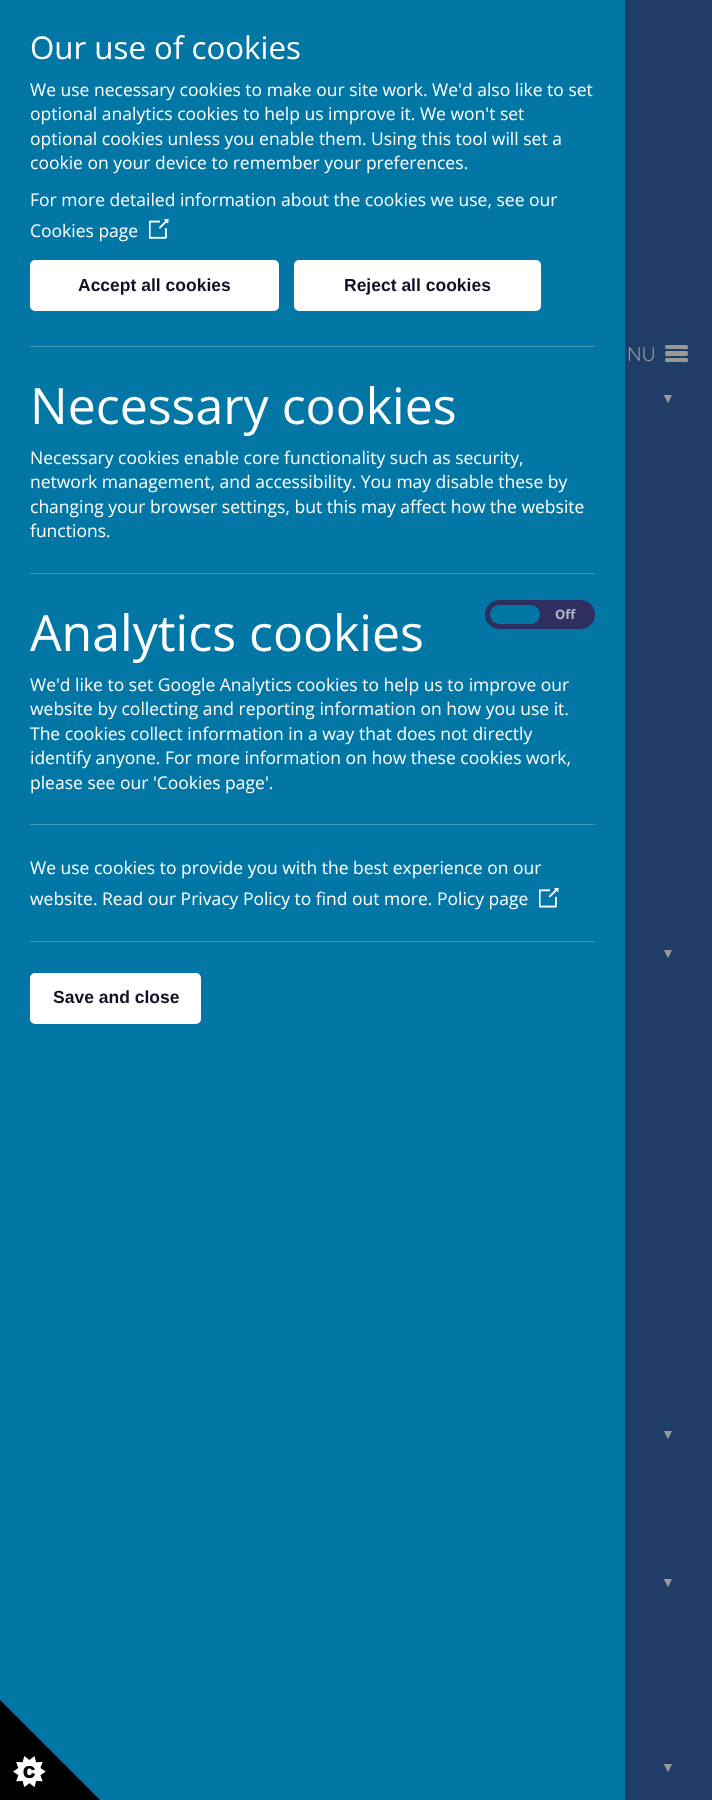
<!DOCTYPE html>
<meta charset="utf-8">
<style>body { margin: 0 } canvas { display: block }</style>
<canvas id="canvas" width="712" height="1800"></canvas>
<script type="module">
  const canvas = document.getElementById("canvas");
  const ctx = canvas.getContext("2d");
  ctx.miterLimit = 4;
  ctx.fontKerning = "normal";
  async function loadImage(src) {
    const img = new Image();
    img.src = src;
    await img.decode();
    return img;
  }

  ctx.fillStyle = "#1f3d67";
  ctx.fillRect(0, 0, 712, 1800);
  ctx.fillStyle = "#0276a5";
  ctx.fillRect(0, 0, 625, 1800);
  ctx.font = "31.25px Open Sans";
  ctx.fillStyle = "#ffffff";
  ctx.fillText("Our use of cookies", 30, 59);
  ctx.font = "17.5px Open Sans";
  ctx.fillText("We use necessary cookies to make our site work. We'd also like to set", 30, 96);
  ctx.fillText("optional analytics cookies to help us improve it. We won't set", 30, 120);
  ctx.fillText("optional cookies unless you enable them. Using this tool will set a", 30, 145);
  ctx.fillText("cookie on your device to remember your preferences.", 30, 169);
  ctx.fillText("For more detailed information about the cookies we use, see our", 30, 206);
  ctx.fillText("Cookies page", 30, 237);
  ctx.drawImage(await loadImage("img1.png"), 149, 219, 20, 20);
  ctx.beginPath();
  ctx.roundRect(31.5, 261.5, 246, 48, 3.5);
  ctx.fill();
  ctx.strokeStyle = "#ffffff";
  ctx.lineWidth = 3;
  ctx.stroke();
  ctx.font = "bold 17.5px Liberation Sans";
  ctx.fillStyle = "#111125";
  ctx.fillText("Accept all cookies", 78, 291);
  ctx.fillStyle = "#ffffff";
  ctx.beginPath();
  ctx.roundRect(295.5, 261.5, 244, 48, 3.5);
  ctx.fill();
  ctx.stroke();
  ctx.fillStyle = "#111125";
  ctx.fillText("Reject all cookies", 344, 291);
  ctx.fillStyle = "#4198bc";
  ctx.fillRect(30, 346, 565, 1);
  ctx.font = "50px Open Sans";
  ctx.fillStyle = "#ffffff";
  ctx.fillText("Necessary cookies", 30, 424);
  ctx.font = "17.5px Open Sans";
  ctx.fillText("Necessary cookies enable core functionality such as security,", 30, 464);
  ctx.fillText("network management, and accessibility. You may disable these by", 30, 488);
  ctx.fillText("changing your browser settings, but this may affect how the website", 30, 513);
  ctx.fillText("functions.", 30, 537);
  ctx.fillStyle = "#4198bc";
  ctx.fillRect(30, 573, 565, 1);
  ctx.font = "50px Open Sans";
  ctx.fillStyle = "#ffffff";
  ctx.fillText("Analytics cookies", 30, 651);
  ctx.fillStyle = "#2f2f5f";
  ctx.beginPath();
  ctx.roundRect(487.5, 602.5, 105, 24, 12);
  ctx.fill();
  ctx.strokeStyle = "#2f2f5f";
  ctx.lineWidth = 5;
  ctx.stroke();
  ctx.fillStyle = "#0276a5";
  ctx.beginPath();
  ctx.roundRect(490, 605, 50, 19, 9.5);
  ctx.fill();
  ctx.font = "bold 13px Open Sans";
  ctx.fillStyle = "#b6b6c7";
  ctx.fillText("Off", 555, 619);
  ctx.font = "17.5px Open Sans";
  ctx.fillStyle = "#ffffff";
  ctx.fillText("We'd like to set Google Analytics cookies to help us to improve our", 30, 691);
  ctx.fillText("website by collecting and reporting information on how you use it.", 30, 715);
  ctx.fillText("The cookies collect information in a way that does not directly", 30, 740);
  ctx.fillText("identify anyone. For more information on how these cookies work,", 30, 764);
  ctx.fillText("please see our 'Cookies page'.", 30, 789);
  ctx.fillStyle = "#4198bc";
  ctx.fillRect(30, 824, 565, 1);
  ctx.fillStyle = "#ffffff";
  ctx.fillText("We use cookies to provide you with the best experience on our", 30, 874);
  ctx.fillText("website. Read our Privacy Policy to find out more. Policy page", 30, 905);
  ctx.drawImage(await loadImage("img2.png"), 539, 888, 20, 20);
  ctx.fillStyle = "#4198bc";
  ctx.fillRect(30, 941, 565, 1);
  ctx.fillStyle = "#ffffff";
  ctx.beginPath();
  ctx.roundRect(31.5, 974.5, 168, 48, 3.5);
  ctx.fill();
  ctx.strokeStyle = "#ffffff";
  ctx.lineWidth = 3;
  ctx.stroke();
  ctx.font = "bold 17.5px Liberation Sans";
  ctx.fillStyle = "#111125";
  ctx.fillText("Save and close", 53, 1003);
  ctx.drawImage(await loadImage("img3.png"), 0, 1700, 100, 100);
  ctx.font = "20px Quicksand";
  ctx.fillStyle = "#999999";
  ctx.fillText("NU", 627, 361);
  ctx.beginPath();
  ctx.moveTo(665, 347);
  ctx.bezierCurveTo(664, 349.5, 669, 349, 670, 349);
  ctx.lineTo(683, 349);
  ctx.bezierCurveTo(684, 349, 687.5, 350, 688, 348);
  ctx.bezierCurveTo(688, 347.5, 688, 346.5, 687.5, 346.5);
  ctx.bezierCurveTo(687.5, 347, 687, 347.5, 686, 347.5);
  ctx.lineTo(666, 347.5);
  ctx.bezierCurveTo(666, 347.5, 665.5, 347, 665, 347);
  ctx.closePath();
  ctx.fill();
  ctx.beginPath();
  ctx.roundRect(665, 345, 23, 3, 1.5);
  ctx.fill();
  ctx.beginPath();
  ctx.moveTo(665.5, 353.5);
  ctx.lineTo(665, 355);
  ctx.bezierCurveTo(665.5, 357, 669, 356, 670, 356);
  ctx.lineTo(673, 356);
  ctx.bezierCurveTo(675, 356, 686.5, 356.5, 687.5, 355.5);
  ctx.bezierCurveTo(688, 355, 688, 354, 687.5, 353);
  ctx.lineTo(686.5, 353.5);
  ctx.bezierCurveTo(684.5, 354, 666, 354, 665.5, 353.5);
  ctx.closePath();
  ctx.fill();
  ctx.beginPath();
  ctx.roundRect(665, 351, 23, 3, 1.5);
  ctx.fill();
  ctx.beginPath();
  ctx.moveTo(665.5, 359.5);
  ctx.lineTo(665, 361);
  ctx.bezierCurveTo(665.5, 363, 669, 362, 670, 362);
  ctx.lineTo(683, 362);
  ctx.bezierCurveTo(684.5, 362, 688, 363, 688, 360.5);
  ctx.lineTo(687.5, 359.5);
  ctx.lineTo(686.5, 360);
  ctx.bezierCurveTo(684.5, 360.5, 666, 360.5, 665.5, 359.5);
  ctx.closePath();
  ctx.fill();
  ctx.beginPath();
  ctx.roundRect(665, 358, 23, 3, 1.5);
  ctx.fill();
  ctx.font = "14px Liberation Sans";
  ctx.fillText("▼", 661, 403);
  ctx.fillText("▼", 661, 958);
  ctx.fillText("▼", 661, 1439);
  ctx.fillText("▼", 661, 1587);
  ctx.fillText("▼", 661, 1772);
</script>
